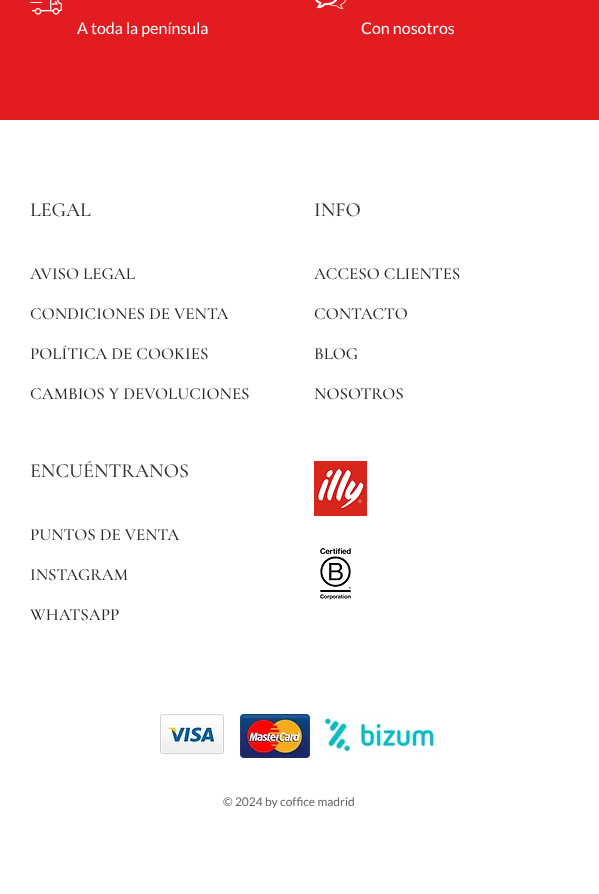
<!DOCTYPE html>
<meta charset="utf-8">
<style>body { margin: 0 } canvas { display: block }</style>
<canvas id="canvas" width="599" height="894"></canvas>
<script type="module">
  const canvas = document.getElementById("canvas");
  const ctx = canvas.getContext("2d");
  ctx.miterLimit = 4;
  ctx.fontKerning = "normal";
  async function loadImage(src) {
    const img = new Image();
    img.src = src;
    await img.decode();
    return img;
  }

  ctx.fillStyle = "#ffffff";
  ctx.fillRect(0, 0, 599, 894);
  ctx.fillStyle = "#e21c21";
  ctx.fillRect(0, 0, 599, 120);
  ctx.drawImage(await loadImage("img1.png"), 30, 0, 32, 15);
  ctx.font = "16px Lato";
  ctx.fillStyle = "#ffffff";
  ctx.fillText("A toda la península", 77, 34);
  ctx.drawImage(await loadImage("img2.png"), 315, 0, 31, 9);
  ctx.fillText("Con nosotros", 361, 34);
  ctx.font = "500 20px Cormorant Garamond";
  ctx.fillStyle = "#333333";
  ctx.fillText("LEGAL", 30, 216);
  ctx.font = "500 17px Cormorant Garamond";
  ctx.fillStyle = "#282626";
  ctx.fillText("AVISO LEGAL", 30, 279);
  ctx.fillText("CONDICIONES DE VENTA", 30, 319);
  ctx.fillText("POLÍTICA DE COOKIES", 30, 359);
  ctx.fillText("CAMBIOS Y DEVOLUCIONES", 30, 399);
  ctx.font = "500 20px Cormorant Garamond";
  ctx.fillStyle = "#333333";
  ctx.fillText("INFO", 314, 216);
  ctx.font = "500 17px Cormorant Garamond";
  ctx.fillStyle = "#282626";
  ctx.fillText("ACCESO CLIENTES", 314, 279);
  ctx.fillText("CONTACTO", 314, 319);
  ctx.fillText("BLOG", 314, 359);
  ctx.fillText("NOSOTROS", 314, 399);
  ctx.font = "500 20px Cormorant Garamond";
  ctx.fillStyle = "#333333";
  ctx.fillText("ENCUÉNTRANOS", 30, 477);
  ctx.font = "500 17px Cormorant Garamond";
  ctx.fillStyle = "#282626";
  ctx.fillText("PUNTOS DE VENTA", 30, 540);
  ctx.fillText("INSTAGRAM", 30, 580);
  ctx.fillText("WHATSAPP", 30, 620);
  ctx.drawImage(await loadImage("img3.png"), 314, 461, 53, 55);
  ctx.drawImage(await loadImage("img4.png"), 320, 548, 31, 52);
  ctx.drawImage(await loadImage("img5.png"), 160, 712, 279, 48);
  ctx.font = "12px Lato";
  ctx.fillStyle = "#666666";
  ctx.fillText("© 2024 by coffice madrid", 223, 806);
</script>
